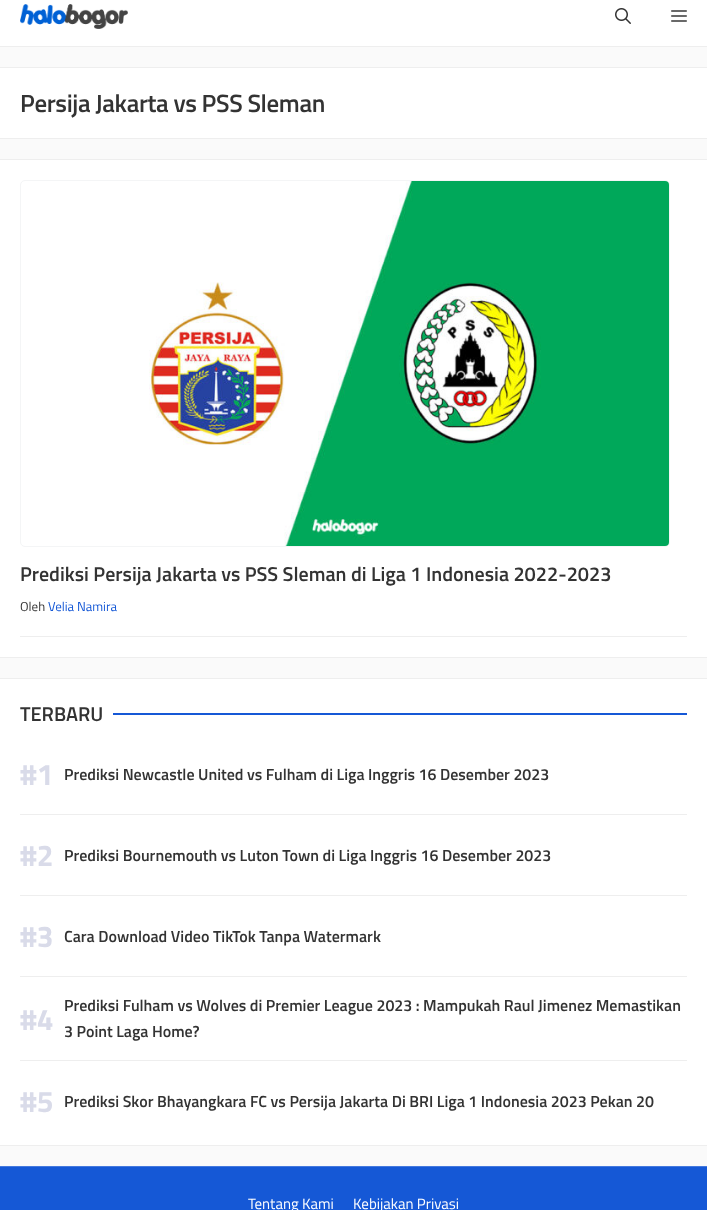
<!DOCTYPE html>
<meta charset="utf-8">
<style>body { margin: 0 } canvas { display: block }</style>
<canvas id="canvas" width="707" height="1210"></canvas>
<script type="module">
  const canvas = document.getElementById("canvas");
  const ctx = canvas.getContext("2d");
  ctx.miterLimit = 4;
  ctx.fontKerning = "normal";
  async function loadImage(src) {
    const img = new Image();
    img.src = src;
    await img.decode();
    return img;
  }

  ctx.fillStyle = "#fafafa";
  ctx.fillRect(0, 0, 707, 1210);
  ctx.fillStyle = "#ffffff";
  ctx.fillRect(0, 0, 707, 46);
  ctx.fillStyle = "#eeeeee";
  ctx.fillRect(0, 46, 707, 1);
  ctx.drawImage(await loadImage("img1.png"), 20, 4, 108, 25);
  ctx.drawImage(await loadImage("img2.png"), 615, 8, 16, 16);
  ctx.drawImage(await loadImage("img3.png"), 671, 10, 16, 12);
  ctx.fillStyle = "#ffffff";
  ctx.fillRect(0, 68, 707, 70);
  ctx.fillStyle = "#eeeeee";
  ctx.fillRect(0, 67, 707, 1);
  ctx.fillRect(0, 138, 707, 1);
  ctx.letterSpacing = "-0.4px";
  ctx.font = "600 25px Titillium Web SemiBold";
  ctx.fillStyle = "#333333";
  ctx.fillText("Persija Jakarta vs PSS Sleman", 20, 112);
  ctx.fillStyle = "#ffffff";
  ctx.fillRect(0, 160, 707, 497);
  ctx.fillStyle = "#eeeeee";
  ctx.fillRect(0, 159, 707, 1);
  ctx.fillRect(0, 657, 707, 1);
  ctx.fillRect(20, 636, 667, 1);
  ctx.beginPath();
  ctx.roundRect(20.5, 180.5, 649, 366, 4.5);
  ctx.strokeStyle = "#f4f5f6";
  ctx.stroke();
  ctx.drawImage(await loadImage("img4.png"), 149, 181, 520, 365);
  ctx.letterSpacing = "0px";
  ctx.font = "600 20px Titillium Web SemiBold";
  ctx.fillStyle = "#333333";
  ctx.fillText("Prediksi Persija Jakarta vs PSS Sleman di Liga 1 Indonesia 2022-2023", 20, 581);
  ctx.font = "13px Titillium Web";
  ctx.fillText("Oleh", 20, 611);
  ctx.fillStyle = "#1558d6";
  ctx.fillText("Velia Namira", 48, 611);
  ctx.fillStyle = "#ffffff";
  ctx.fillRect(0, 679, 707, 466);
  ctx.fillStyle = "#eeeeee";
  ctx.fillRect(0, 678, 707, 1);
  ctx.fillRect(0, 1145, 707, 1);
  ctx.font = "600 20px Titillium Web SemiBold";
  ctx.fillStyle = "#333333";
  ctx.fillText("TERBARU", 20, 721);
  ctx.fillStyle = "#1558d6";
  ctx.fillRect(113, 713, 574, 2);
  ctx.fillStyle = "#eeeeee";
  ctx.fillRect(20, 814, 667, 1);
  ctx.font = "bold 30px Titillium Web";
  ctx.fillStyle = "#d9dbe9";
  ctx.fillText("#1", 20, 785);
  ctx.font = "600 16px Titillium Web SemiBold";
  ctx.fillStyle = "#333333";
  ctx.fillText("Prediksi Newcastle United vs Fulham di Liga Inggris 16 Desember 2023", 64, 780);
  ctx.fillStyle = "#eeeeee";
  ctx.fillRect(20, 895, 667, 1);
  ctx.font = "bold 30px Titillium Web";
  ctx.fillStyle = "#d9dbe9";
  ctx.fillText("#2", 20, 866);
  ctx.font = "600 16px Titillium Web SemiBold";
  ctx.fillStyle = "#333333";
  ctx.fillText("Prediksi Bournemouth vs Luton Town di Liga Inggris 16 Desember 2023", 64, 861);
  ctx.fillStyle = "#eeeeee";
  ctx.fillRect(20, 976, 667, 1);
  ctx.font = "bold 30px Titillium Web";
  ctx.fillStyle = "#d9dbe9";
  ctx.fillText("#3", 20, 947);
  ctx.font = "600 16px Titillium Web SemiBold";
  ctx.fillStyle = "#333333";
  ctx.fillText("Cara Download Video TikTok Tanpa Watermark", 64, 942);
  ctx.fillStyle = "#eeeeee";
  ctx.fillRect(20, 1060, 667, 1);
  ctx.font = "bold 30px Titillium Web";
  ctx.fillStyle = "#d9dbe9";
  ctx.fillText("#4", 20, 1030);
  ctx.font = "600 16px Titillium Web SemiBold";
  ctx.fillStyle = "#333333";
  ctx.fillText("Prediksi Fulham vs Wolves di Premier League 2023 : Mampukah Raul Jimenez Memastikan", 64, 1011);
  ctx.fillText("3 Point Laga Home?", 64, 1037);
  ctx.font = "bold 30px Titillium Web";
  ctx.fillStyle = "#d9dbe9";
  ctx.fillText("#5", 20, 1112);
  ctx.font = "600 16px Titillium Web SemiBold";
  ctx.fillStyle = "#333333";
  ctx.fillText("Prediksi Skor Bhayangkara FC vs Persija Jakarta Di BRI Liga 1 Indonesia 2023 Pekan 20", 64, 1107);
  ctx.fillStyle = "#1558d6";
  ctx.fillRect(0, 1167, 707, 43);
  ctx.fillStyle = "#4479de";
  ctx.fillRect(0, 1166, 707, 1);
  ctx.font = "15px Titillium Web";
  ctx.fillStyle = "#ffffff";
  ctx.fillText("Tentang Kami", 248, 1209);
  ctx.fillText("Kebijakan Privasi", 353, 1209);
</script>
